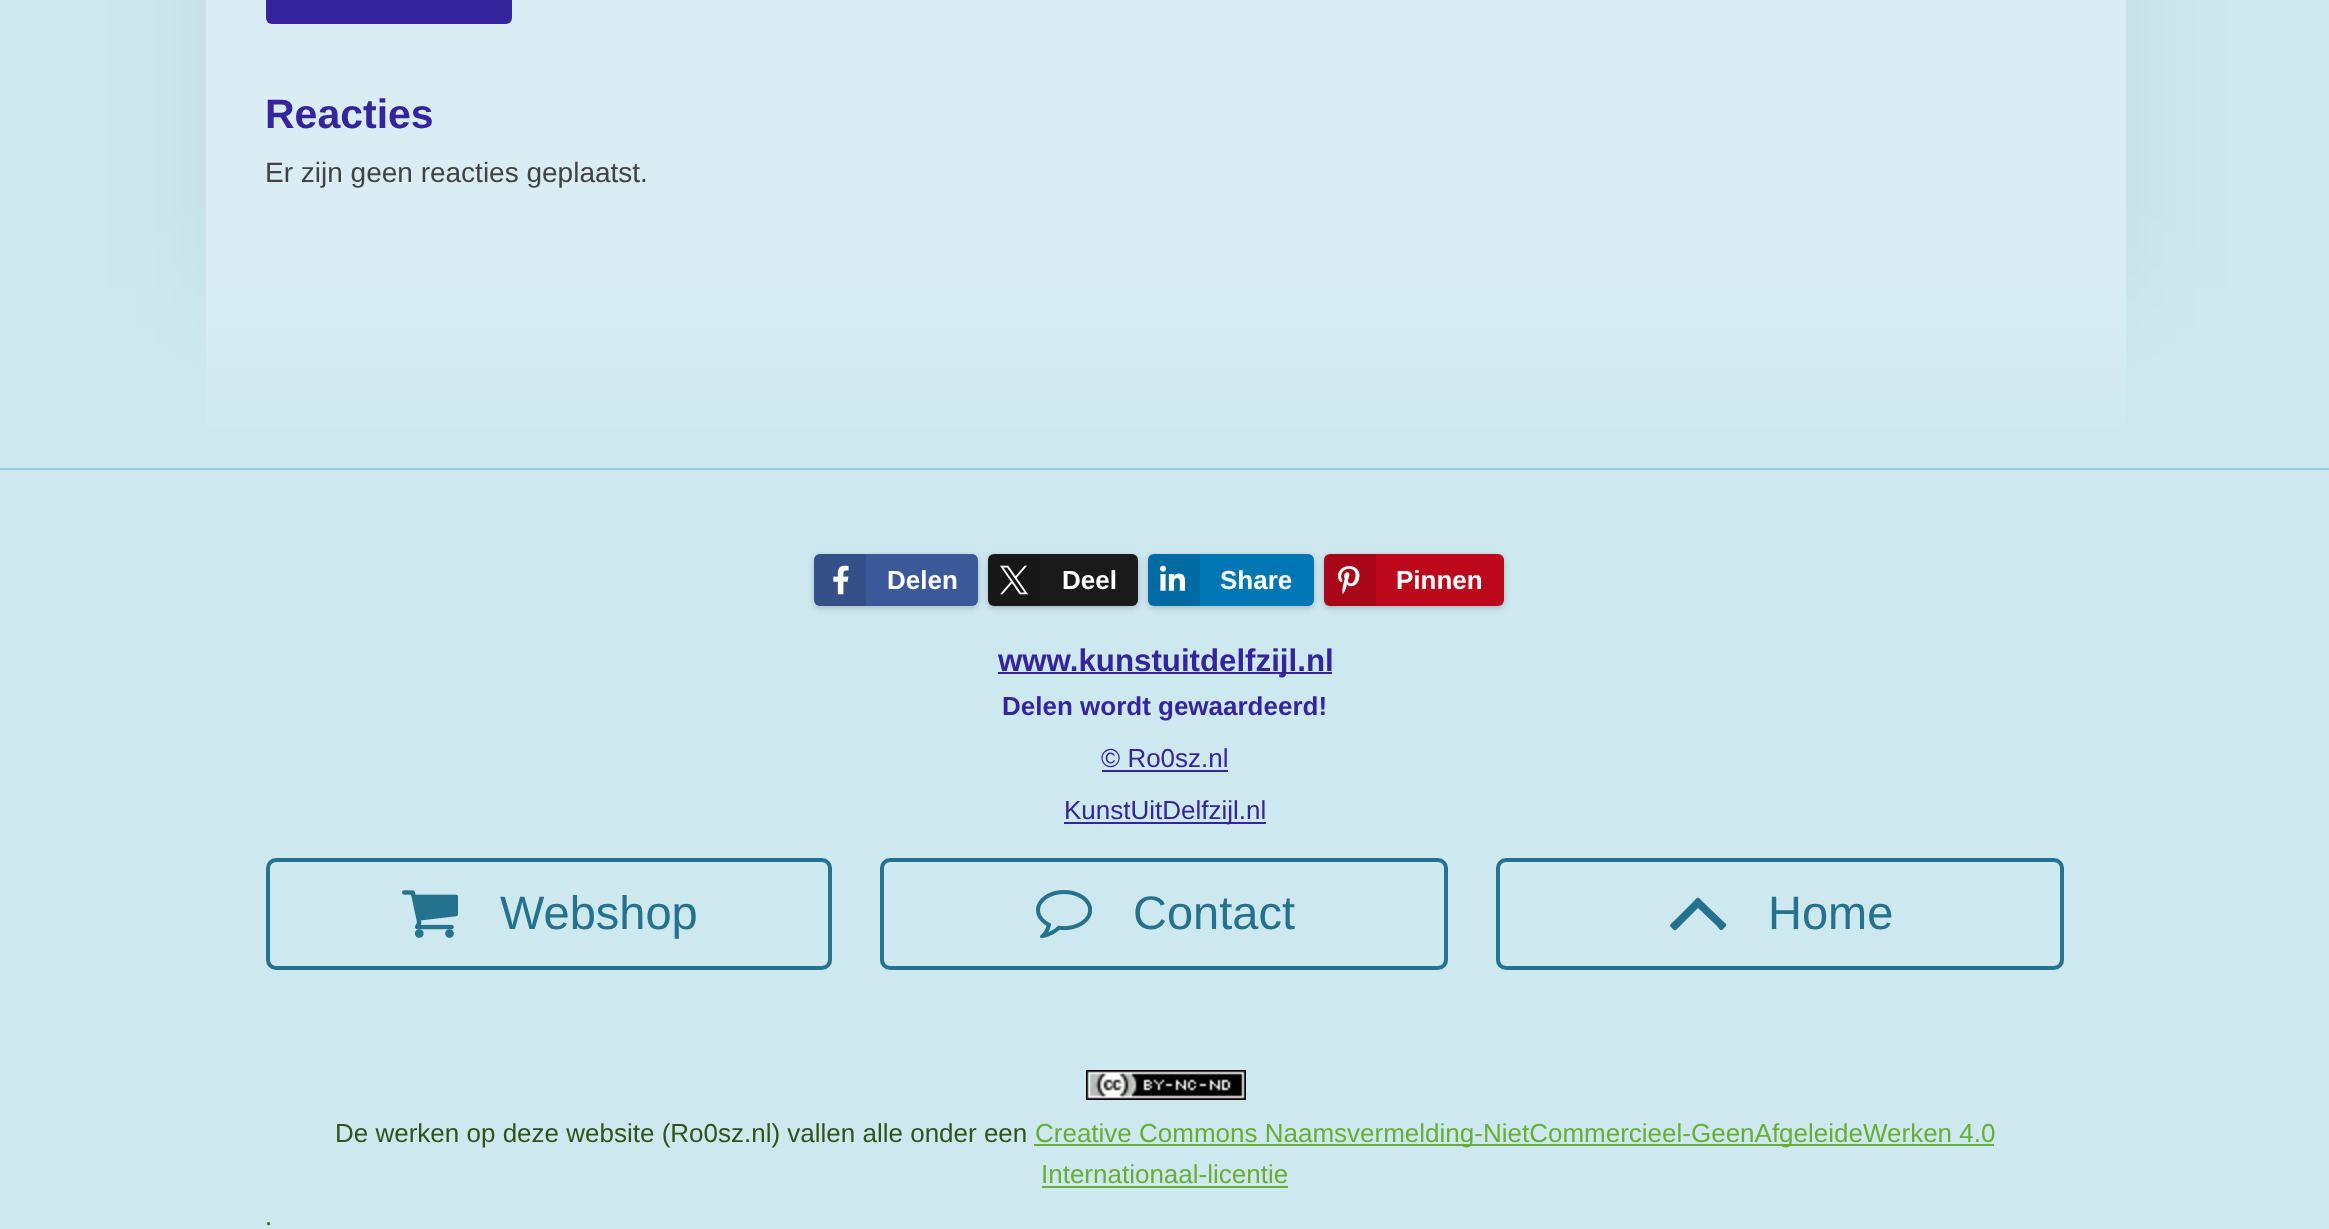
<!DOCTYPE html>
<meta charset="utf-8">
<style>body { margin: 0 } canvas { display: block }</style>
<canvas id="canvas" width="2329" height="1229"></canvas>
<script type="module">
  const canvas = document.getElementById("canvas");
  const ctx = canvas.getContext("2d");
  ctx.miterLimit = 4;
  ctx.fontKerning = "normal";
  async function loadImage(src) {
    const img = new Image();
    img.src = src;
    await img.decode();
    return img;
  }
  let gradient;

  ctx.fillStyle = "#cee8f0";
  ctx.fillRect(0, 0, 2329, 1229);
  ctx.fillStyle = "#93cdde";
  ctx.fillRect(0, 468, 2329, 2);
  ctx.fillStyle = "rgba(0, 0, 0, 0.05)";
  ctx.filter = "blur(60px)";
  ctx.beginPath();
  ctx.rect(206, -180, 1920, 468);
  ctx.fill();
  ctx.filter = "none";
  ctx.fillStyle = "#daedf4";
  ctx.fillRect(206, 0, 1920, 268);
  ctx.fillStyle = "#35249b";
  ctx.beginPath();
  ctx.roundRect(266, -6, 246, 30, 6);
  ctx.fill();
  ctx.font = "bold 41px Liberation Sans";
  ctx.fillText("Reacties", 265, 128);
  ctx.font = "28px Liberation Sans";
  ctx.fillStyle = "#424242";
  ctx.fillText("Er zijn geen reacties geplaatst.", 265, 182);
  gradient = ctx.createLinearGradient(1166, 268, 1166, 468);
  gradient.addColorStop(0, "#daedf4");
  gradient.addColorStop(1, "#cee8f0");
  ctx.fillStyle = gradient;
  ctx.fillRect(206, 268, 1920, 158);
  ctx.fillStyle = "rgba(0, 0, 0, 0.2)";
  ctx.filter = "blur(3px)";
  ctx.beginPath();
  ctx.roundRect(814, 556, 164, 52, 6);
  ctx.fill();
  ctx.filter = "none";
  ctx.fillStyle = "#3b5998";
  ctx.beginPath();
  ctx.roundRect(814, 554, 164, 52, 6);
  ctx.fill();
  ctx.fillStyle = "rgba(0, 0, 0, 0.1)";
  ctx.beginPath();
  ctx.roundRect(814, 554, 52, 52, [6, 0, 0, 6]);
  ctx.fill();
  ctx.drawImage(await loadImage("img1.png"), 833, 565, 16, 30);
  ctx.font = "bold 26px Liberation Sans";
  ctx.fillStyle = "#ffffff";
  ctx.fillText("Delen", 887, 589);
  ctx.fillStyle = "rgba(0, 0, 0, 0.2)";
  ctx.filter = "blur(3px)";
  ctx.beginPath();
  ctx.roundRect(988, 556, 150, 52, 6);
  ctx.fill();
  ctx.filter = "none";
  ctx.fillStyle = "#1a1a1a";
  ctx.beginPath();
  ctx.roundRect(988, 554, 150, 52, 6);
  ctx.fill();
  ctx.fillStyle = "rgba(0, 0, 0, 0.1)";
  ctx.beginPath();
  ctx.roundRect(988, 554, 52, 52, [6, 0, 0, 6]);
  ctx.fill();
  ctx.drawImage(await loadImage("img2.png"), 1000, 565, 28, 30);
  ctx.fillStyle = "#ffffff";
  ctx.fillText("Deel", 1062, 589);
  ctx.fillStyle = "rgba(0, 0, 0, 0.2)";
  ctx.filter = "blur(3px)";
  ctx.beginPath();
  ctx.roundRect(1148, 556, 166, 52, 6);
  ctx.fill();
  ctx.filter = "none";
  ctx.fillStyle = "#0077b5";
  ctx.beginPath();
  ctx.roundRect(1148, 554, 166, 52, 6);
  ctx.fill();
  ctx.fillStyle = "rgba(0, 0, 0, 0.1)";
  ctx.beginPath();
  ctx.roundRect(1148, 554, 52, 52, [6, 0, 0, 6]);
  ctx.fill();
  ctx.drawImage(await loadImage("img3.png"), 1160, 565, 26, 26);
  ctx.fillStyle = "#ffffff";
  ctx.fillText("Share", 1220, 589);
  ctx.fillStyle = "rgba(0, 0, 0, 0.2)";
  ctx.filter = "blur(3px)";
  ctx.beginPath();
  ctx.roundRect(1324, 556, 180, 52, 6);
  ctx.fill();
  ctx.filter = "none";
  ctx.fillStyle = "#bd081c";
  ctx.beginPath();
  ctx.roundRect(1324, 554, 180, 52, 6);
  ctx.fill();
  ctx.fillStyle = "rgba(0, 0, 0, 0.1)";
  ctx.beginPath();
  ctx.roundRect(1324, 554, 52, 52, [6, 0, 0, 6]);
  ctx.fill();
  ctx.drawImage(await loadImage("img4.png"), 1338, 566, 22, 28);
  ctx.fillStyle = "#ffffff";
  ctx.fillText("Pinnen", 1396, 589);
  ctx.fillStyle = "#35249b";
  ctx.fillRect(998, 672, 334, 2);
  ctx.font = "bold 31.25px Liberation Sans";
  ctx.fillText("www.kunstuitdelfzijl.nl", 998, 671);
  ctx.font = "bold 26px Liberation Sans";
  ctx.fillText("Delen wordt gewaardeerd!", 1002, 715);
  ctx.font = "26px Liberation Sans";
  ctx.fillText("© Ro0sz.nl", 1101, 767);
  ctx.fillRect(1102, 770, 126, 2);
  ctx.fillRect(1064, 822, 202, 2);
  ctx.fillText("KunstUitDelfzijl.nl", 1064, 819);
  ctx.beginPath();
  ctx.roundRect(268, 860, 562, 108, 8);
  ctx.strokeStyle = "#24728d";
  ctx.lineWidth = 4;
  ctx.stroke();
  ctx.drawImage(await loadImage("img5.png"), 402, 890, 56, 48);
  ctx.font = "47px Liberation Sans";
  ctx.fillStyle = "#24728d";
  ctx.fillText("Webshop", 500, 929);
  ctx.beginPath();
  ctx.roundRect(882, 860, 564, 108, 8);
  ctx.stroke();
  ctx.drawImage(await loadImage("img6.png"), 1036, 890, 56, 49);
  ctx.fillText("Contact", 1133, 929);
  ctx.beginPath();
  ctx.roundRect(1498, 860, 564, 108, 8);
  ctx.stroke();
  ctx.beginPath();
  ctx.moveTo(1726, 924);
  ctx.lineTo(1704, 903);
  ctx.bezierCurveTo(1697, 896, 1699, 896, 1692, 903);
  ctx.lineTo(1675, 920);
  ctx.bezierCurveTo(1671, 924, 1668, 925, 1672, 928);
  ctx.bezierCurveTo(1673, 929, 1674, 931, 1676, 930);
  ctx.lineTo(1698, 908);
  ctx.lineTo(1717, 926);
  ctx.bezierCurveTo(1720, 930, 1721, 932, 1724, 928);
  ctx.bezierCurveTo(1725, 927, 1727, 926, 1726, 924);
  ctx.closePath();
  ctx.fill();
  ctx.fillText("Home", 1768, 929);
  ctx.drawImage(await loadImage("img7.png"), 1086, 1070, 160, 30);
  ctx.font = "26px Liberation Sans";
  ctx.fillStyle = "#315219";
  ctx.fillText("De werken op deze website (Ro0sz.nl) vallen alle onder een", 335, 1142);
  ctx.fillStyle = "#68ae34";
  ctx.fillRect(1034, 1144, 960, 2);
  ctx.fillText("Creative Commons Naamsvermelding-NietCommercieel-GeenAfgeleideWerken 4.0", 1035, 1142);
  ctx.fillText("Internationaal-licentie", 1041, 1183);
  ctx.fillRect(1042, 1186, 246, 2);
  ctx.fillStyle = "#315219";
  ctx.fillText(".", 265, 1225);
</script>
